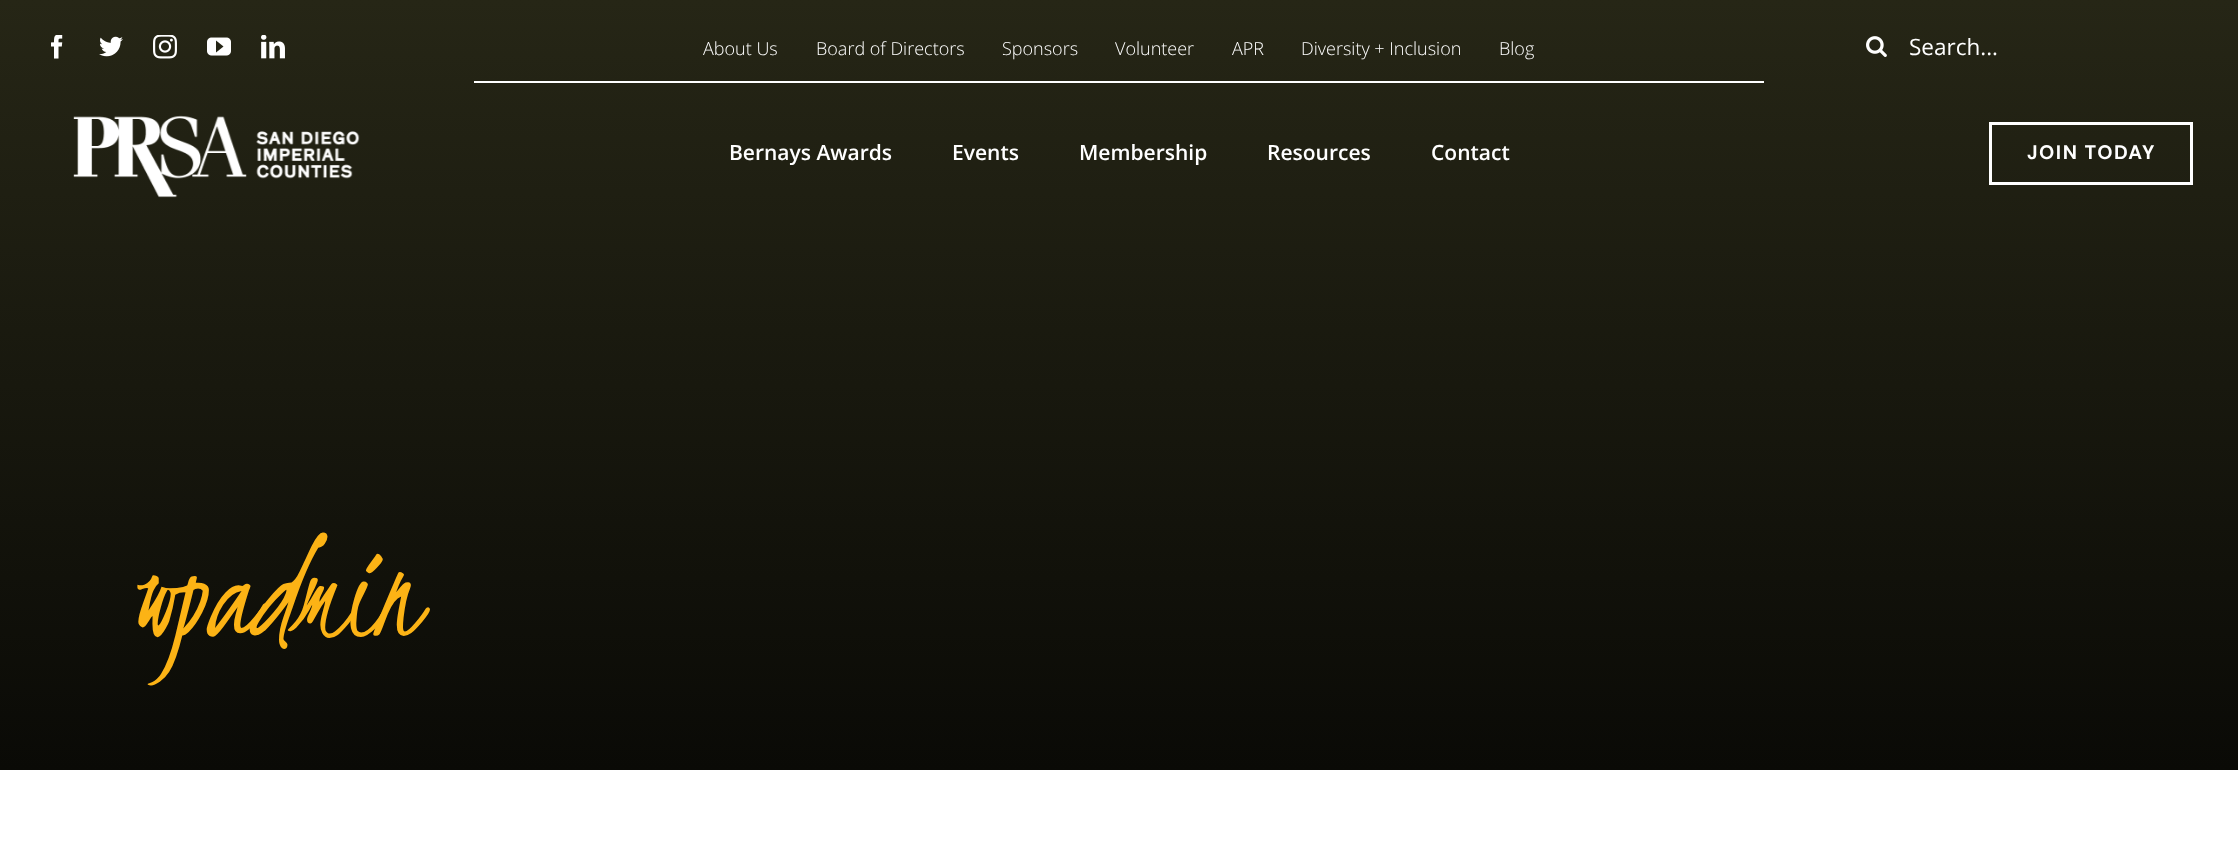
<!DOCTYPE html>
<meta charset="utf-8">
<style>body { margin: 0 } canvas { display: block }</style>
<canvas id="canvas" width="2238" height="866"></canvas>
<script type="module">
  const canvas = document.getElementById("canvas");
  const ctx = canvas.getContext("2d");
  ctx.miterLimit = 4;
  ctx.fontKerning = "normal";
  async function loadImage(src) {
    const img = new Image();
    img.src = src;
    await img.decode();
    return img;
  }
  let gradient;

  ctx.fillStyle = "#ffffff";
  ctx.fillRect(0, 0, 2238, 866);
  gradient = ctx.createLinearGradient(1119, 0, 1119, 770);
  gradient.addColorStop(0, "#262616");
  gradient.addColorStop(1, "#0a0a06");
  ctx.fillStyle = gradient;
  ctx.fillRect(0, 0, 2238, 770);
  ctx.drawImage(await loadImage("img1.png"), 51, 35, 12, 24);
  ctx.drawImage(await loadImage("img2.png"), 99, 36, 24, 21);
  ctx.drawImage(await loadImage("img3.png"), 153, 35, 24, 24);
  ctx.drawImage(await loadImage("img4.png"), 207, 37, 24, 19);
  ctx.drawImage(await loadImage("img5.png"), 261, 35, 24, 24);
  ctx.font = "300 18px Open Sans";
  ctx.fillStyle = "#ffffff";
  ctx.fillText("About Us", 703, 55);
  ctx.fillText("Board of Directors", 816, 55);
  ctx.fillText("Sponsors", 1002, 55);
  ctx.fillText("Volunteer", 1115, 55);
  ctx.fillText("APR", 1232, 55);
  ctx.fillText("Diversity + Inclusion", 1301, 55);
  ctx.fillText("Blog", 1499, 55);
  ctx.fillRect(474, 81, 1290, 2);
  ctx.drawImage(await loadImage("img6.png"), 1866, 36, 21, 21);
  ctx.font = "22.5px Open Sans";
  ctx.fillText("Search...", 1909, 55);
  ctx.drawImage(await loadImage("img7.png"), 73, 115, 287, 83);
  ctx.font = "600 21px Open Sans";
  ctx.fillText("Bernays Awards", 729, 160);
  ctx.fillText("Events", 952, 160);
  ctx.fillText("Membership", 1079, 160);
  ctx.fillText("Resources", 1267, 160);
  ctx.fillText("Contact", 1431, 160);
  ctx.strokeStyle = "#ffffff";
  ctx.lineWidth = 3;
  ctx.strokeRect(1990.5, 123.5, 201, 60);
  ctx.letterSpacing = "1.5px";
  ctx.font = "bold 19.5px DM Sans";
  ctx.fillText("JOIN TODAY", 2027, 159);
  ctx.letterSpacing = "0px";
  ctx.font = "135px Kristi";
  ctx.fillStyle = "#fcb315";
  ctx.fillText("wpadmin", 134, 634);
</script>
